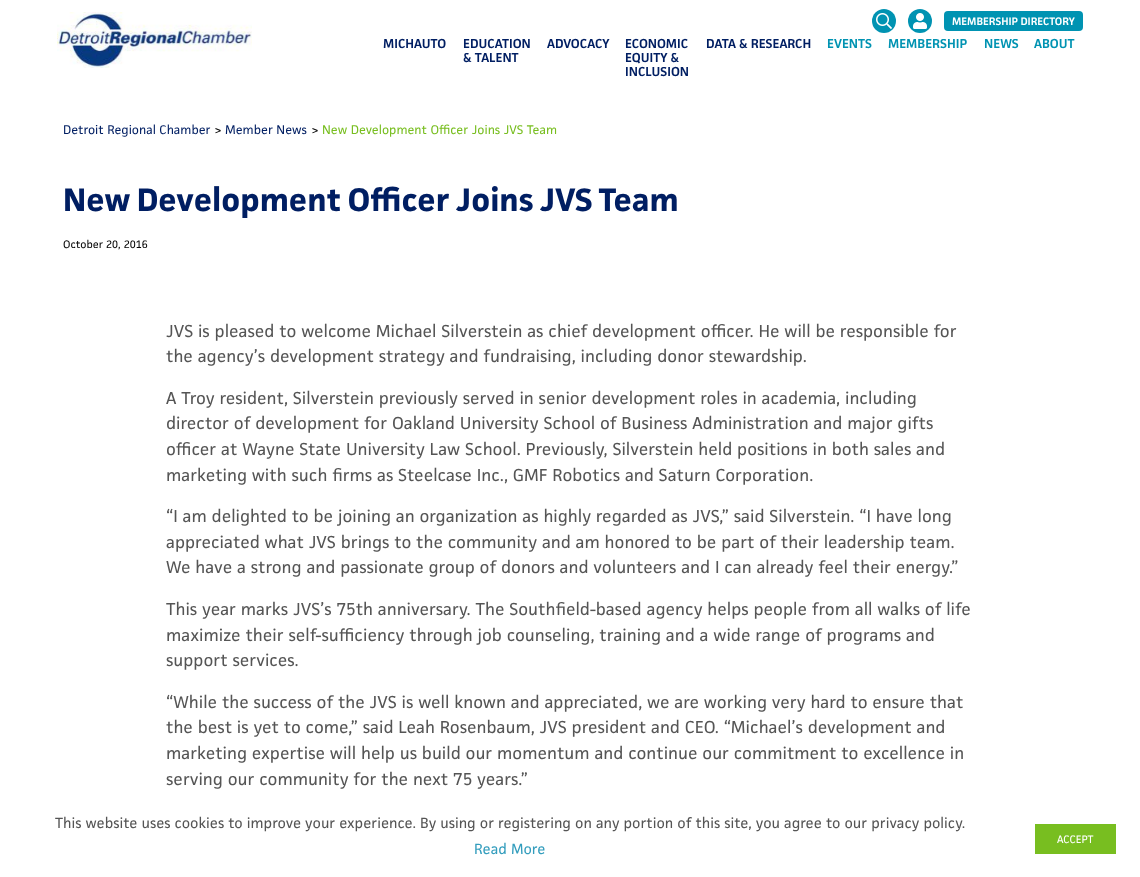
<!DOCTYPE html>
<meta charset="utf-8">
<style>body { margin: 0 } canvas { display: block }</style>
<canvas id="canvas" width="1140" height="877"></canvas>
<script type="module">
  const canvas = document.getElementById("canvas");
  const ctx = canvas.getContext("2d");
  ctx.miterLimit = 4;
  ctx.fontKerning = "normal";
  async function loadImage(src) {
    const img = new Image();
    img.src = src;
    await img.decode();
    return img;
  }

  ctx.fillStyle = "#ffffff";
  ctx.fillRect(0, 0, 1140, 877);
  ctx.drawImage(await loadImage("img1.png"), 57, 12, 195, 56);
  ctx.fillStyle = "#0093b2";
  ctx.beginPath();
  ctx.arc(884, 21, 12, 0, Math.PI * 2);
  ctx.fill();
  ctx.drawImage(await loadImage("img2.png"), 876, 13, 16, 16);
  ctx.beginPath();
  ctx.arc(920, 21, 12, 0, Math.PI * 2);
  ctx.fill();
  ctx.drawImage(await loadImage("img3.png"), 913, 13, 14, 16);
  ctx.beginPath();
  ctx.roundRect(944, 11, 139, 20, 4);
  ctx.fill();
  ctx.font = "10px 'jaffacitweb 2'";
  ctx.fillStyle = "#ffffff";
  ctx.fillText("MEMBERSHIP DIRECTORY", 952, 25);
  ctx.font = "12px 'jaffacitweb 2'";
  ctx.fillStyle = "#001e62";
  ctx.fillText("MICHAUTO", 383, 48);
  ctx.fillText("EDUCATION", 463, 48);
  ctx.fillText("& TALENT", 463, 62);
  ctx.fillText("ADVOCACY", 547, 48);
  ctx.fillText("ECONOMIC", 625, 48);
  ctx.fillText("EQUITY &", 625, 62);
  ctx.fillText("INCLUSION", 625, 76);
  ctx.fillText("DATA & RESEARCH", 706, 48);
  ctx.fillStyle = "#0093b2";
  ctx.fillText("EVENTS", 827, 48);
  ctx.fillText("MEMBERSHIP", 888, 48);
  ctx.fillText("NEWS", 984, 48);
  ctx.fillText("ABOUT", 1034, 48);
  ctx.font = "11.6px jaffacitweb";
  ctx.fillStyle = "#001e62";
  ctx.fillText("Detroit Regional Chamber", 63, 134);
  ctx.fillStyle = "#000000";
  ctx.fillText(">", 214, 134);
  ctx.fillStyle = "#001e62";
  ctx.fillText("Member News", 225, 134);
  ctx.fillStyle = "#000000";
  ctx.fillText(">", 311, 134);
  ctx.fillStyle = "#78be20";
  ctx.fillText("New Development Officer Joins JVS Team", 322, 134);
  ctx.font = "bold 30px jaffacitweb";
  ctx.fillStyle = "#001e62";
  ctx.fillText("New Development Officer Joins JVS Team", 63, 211);
  ctx.font = "10px jaffacitweb";
  ctx.fillStyle = "#000000";
  ctx.fillText("October 20, 2016", 63, 248);
  ctx.font = "16px jaffacitweb";
  ctx.fillStyle = "#555555";
  ctx.fillText("JVS is pleased to welcome Michael Silverstein as chief development officer. He will be responsible for", 166, 337);
  ctx.fillText("the agency’s development strategy and fundraising, including donor stewardship.", 166, 362);
  ctx.fillText("A Troy resident, Silverstein previously served in senior development roles in academia, including", 166, 404);
  ctx.fillText("director of development for Oakland University School of Business Administration and major gifts", 166, 429);
  ctx.fillText("officer at Wayne State University Law School. Previously, Silverstein held positions in both sales and", 166, 455);
  ctx.fillText("marketing with such firms as Steelcase Inc., GMF Robotics and Saturn Corporation.", 166, 481);
  ctx.fillText("“I am delighted to be joining an organization as highly regarded as JVS,” said Silverstein. “I have long", 166, 522);
  ctx.fillText("appreciated what JVS brings to the community and am honored to be part of their leadership team.", 166, 548);
  ctx.fillText("We have a strong and passionate group of donors and volunteers and I can already feel their energy.”", 166, 573);
  ctx.fillText("This year marks JVS’s 75th anniversary. The Southfield-based agency helps people from all walks of life", 166, 615);
  ctx.fillText("maximize their self-sufficiency through job counseling, training and a wide range of programs and", 166, 641);
  ctx.fillText("support services.", 166, 666);
  ctx.fillText("“While the success of the JVS is well known and appreciated, we are working very hard to ensure that", 166, 708);
  ctx.fillText("the best is yet to come,” said Leah Rosenbaum, JVS president and CEO. “Michael’s development and", 166, 733);
  ctx.fillText("marketing expertise will help us build our momentum and continue our commitment to excellence in", 166, 759);
  ctx.fillText("serving our community for the next 75 years.”", 166, 785);
  ctx.font = "13.6px jaffacitweb";
  ctx.fillText("This website uses cookies to improve your experience. By using or registering on any portion of this site, you agree to our privacy policy.", 55, 828);
  ctx.fillStyle = "#339dbd";
  ctx.fillText("Read More", 474, 854);
  ctx.fillStyle = "#78be20";
  ctx.fillRect(1035, 824, 81, 30);
  ctx.font = "10px jaffacitweb";
  ctx.fillStyle = "#ffffff";
  ctx.fillText("ACCEPT", 1057, 843);
</script>
